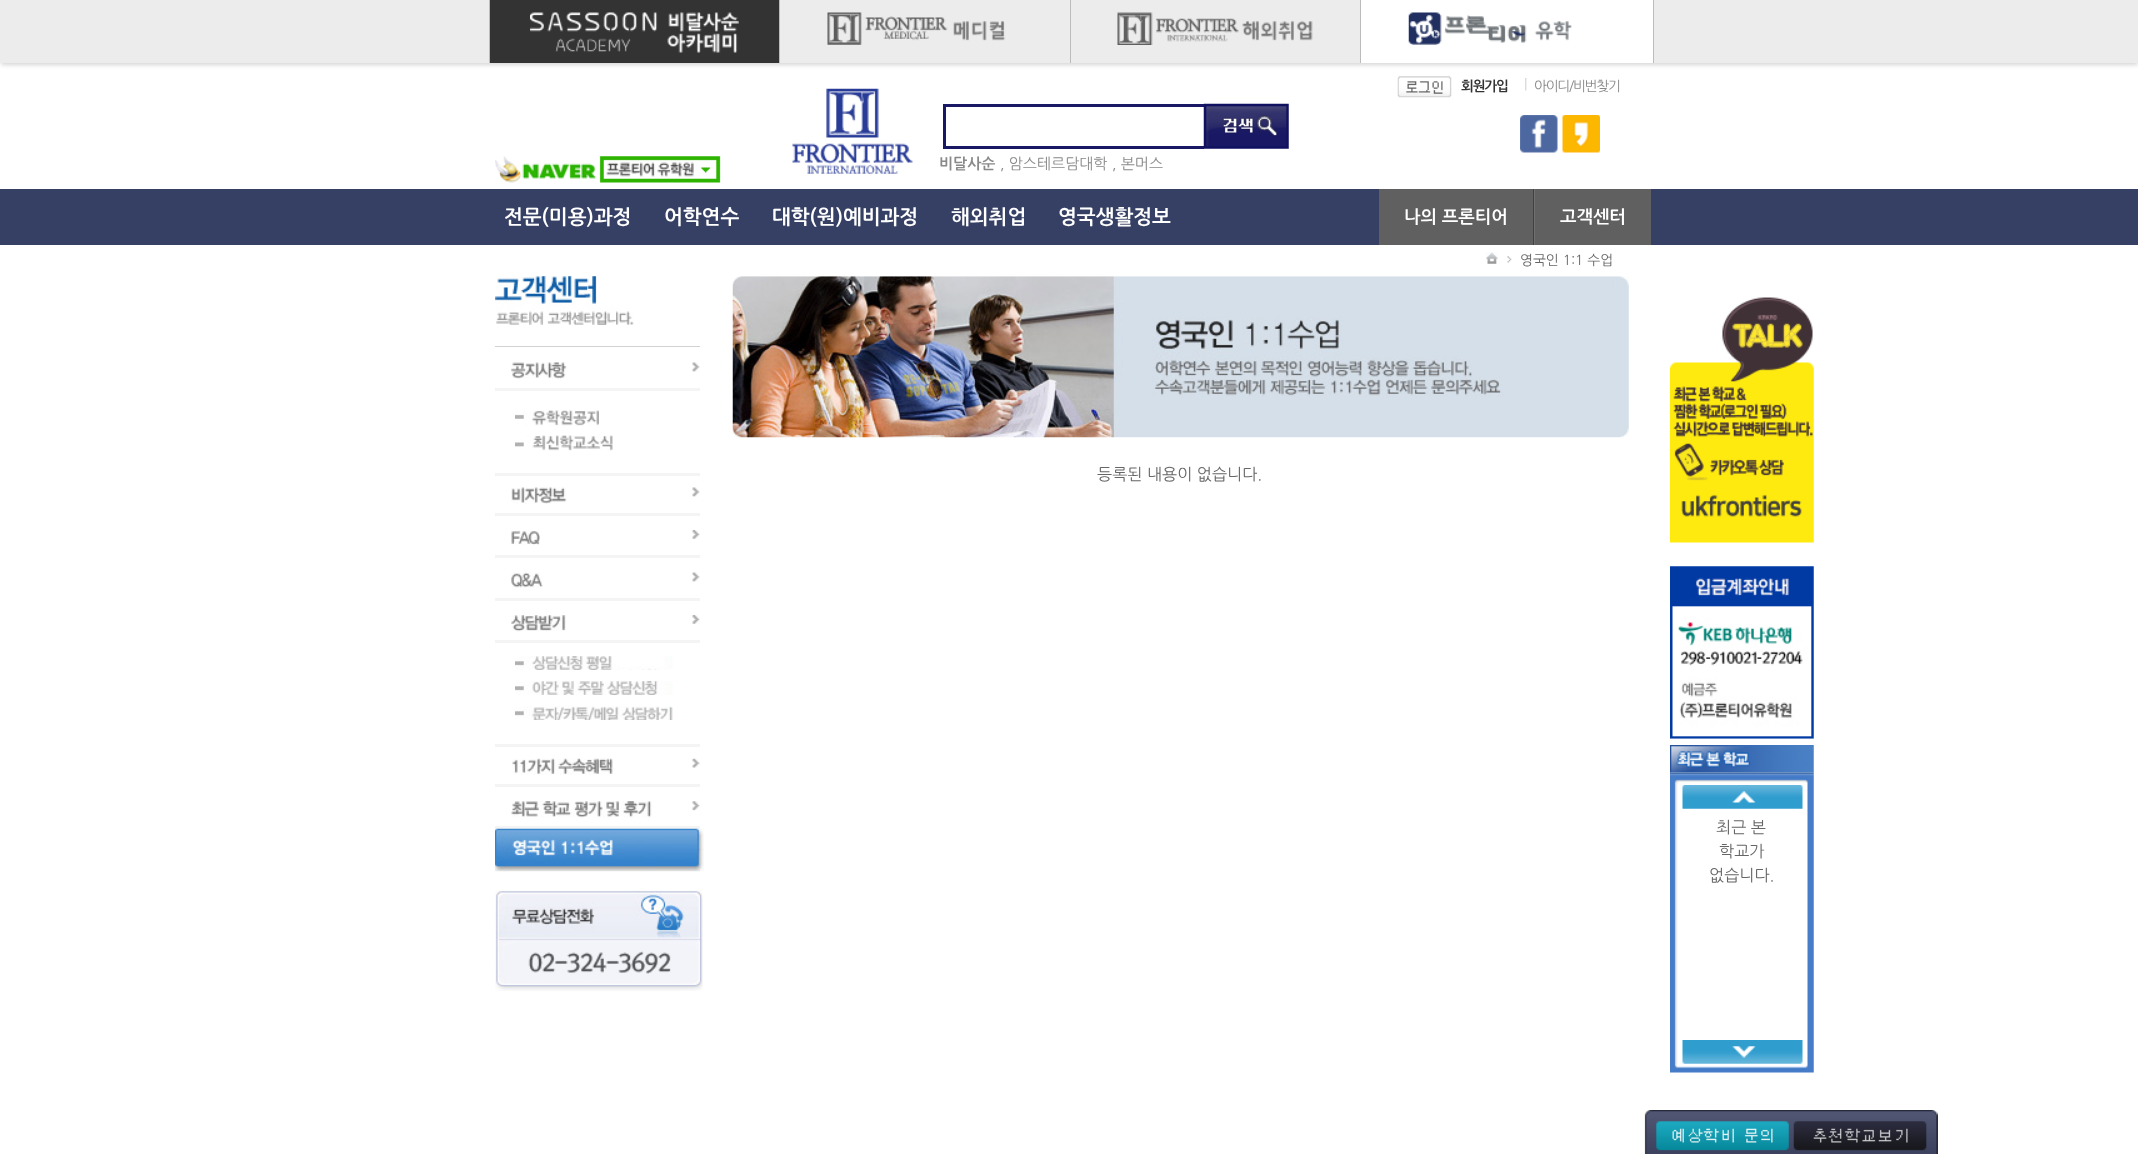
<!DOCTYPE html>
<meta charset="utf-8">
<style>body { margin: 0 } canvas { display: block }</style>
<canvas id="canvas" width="2138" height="1154"></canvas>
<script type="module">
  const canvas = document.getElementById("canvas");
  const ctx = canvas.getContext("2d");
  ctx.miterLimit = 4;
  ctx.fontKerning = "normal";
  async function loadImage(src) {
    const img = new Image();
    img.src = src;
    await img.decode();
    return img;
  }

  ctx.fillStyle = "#ffffff";
  ctx.fillRect(0, 0, 2138, 1154);
  ctx.fillStyle = "rgba(0, 0, 0, 0.16)";
  ctx.filter = "blur(2px)";
  ctx.beginPath();
  ctx.rect(1, 5, 2137, 60);
  ctx.fill();
  ctx.filter = "none";
  ctx.fillStyle = "#ececec";
  ctx.fillRect(0, 0, 2138, 63);
  ctx.fillStyle = "#333333";
  ctx.fillRect(490, 0, 289, 63);
  ctx.fillStyle = "#bdbcbc";
  ctx.fillRect(489, 0, 1, 63);
  ctx.drawImage(await loadImage("img1.png"), 530, 12, 209, 41);
  ctx.fillRect(779, 0, 1, 63);
  ctx.drawImage(await loadImage("img2.png"), 827, 12, 179, 33);
  ctx.fillRect(1070, 0, 1, 63);
  ctx.drawImage(await loadImage("img3.png"), 1117, 12, 196, 33);
  ctx.fillStyle = "#ffffff";
  ctx.fillRect(1361, 0, 292, 63);
  ctx.fillStyle = "#bdbcbc";
  ctx.fillRect(1653, 0, 1, 63);
  ctx.fillRect(1360, 0, 1, 63);
  ctx.drawImage(await loadImage("img4.png"), 1408, 12, 164, 33);
  ctx.drawImage(await loadImage("img5.png"), 1397, 76, 55, 22);
  ctx.letterSpacing = "-1.25px";
  ctx.font = "bold 13.75px NanumGothic";
  ctx.fillStyle = "#333333";
  ctx.fillText("회원가입", 1461, 91);
  ctx.letterSpacing = "0px";
  ctx.font = "13.75px NanumGothic";
  ctx.fillStyle = "#d2d1d1";
  ctx.fillText("|", 1524, 89);
  ctx.letterSpacing = "-1.25px";
  ctx.fillStyle = "#898989";
  ctx.fillText("아이디/비번찾기", 1534, 91);
  ctx.drawImage(await loadImage("img6.png"), 792, 88, 121, 86);
  ctx.drawImage(await loadImage("img7.png"), 1520, 115, 38, 38);
  ctx.drawImage(await loadImage("img8.png"), 1562, 115, 38, 38);
  ctx.drawImage(await loadImage("img9.png"), 495, 156, 226, 27);
  ctx.strokeStyle = "#181864";
  ctx.lineWidth = 3;
  ctx.strokeRect(944.5, 105.5, 275, 42);
  ctx.fillStyle = "#ffffff";
  ctx.fillRect(1204, 104, 17, 45);
  ctx.drawImage(await loadImage("img10.png"), 1203, 103, 86, 46);
  ctx.letterSpacing = "0px";
  ctx.font = "bold 15px NanumGothic";
  ctx.fillStyle = "#898989";
  ctx.fillText("비달사순", 939, 169);
  ctx.font = "15px NanumGothic";
  ctx.fillText(", 암스테르담대학", 1000, 169);
  ctx.fillText(", 본머스", 1112, 169);
  ctx.fillStyle = "#364065";
  ctx.fillRect(0, 189, 2138, 56);
  ctx.font = "bold 20px NanumGothic";
  ctx.fillStyle = "#ffffff";
  ctx.fillText("전문(미용)과정", 504, 224);
  ctx.fillText("어학연수", 664, 224);
  ctx.fillText("대학(원)예비과정", 772, 224);
  ctx.fillText("해외취업", 951, 224);
  ctx.fillText("영국생활정보", 1058, 224);
  ctx.fillStyle = "#606060";
  ctx.fillRect(1379, 189, 272, 56);
  ctx.fillStyle = "#404040";
  ctx.fillRect(1533, 189, 1, 56);
  ctx.font = "bold 17.5px NanumGothic";
  ctx.fillStyle = "#ffffff";
  ctx.fillText("나의 프론티어", 1404, 223);
  ctx.fillStyle = "#707070";
  ctx.fillRect(1534, 189, 1, 56);
  ctx.fillStyle = "#ffffff";
  ctx.fillText("고객센터", 1560, 223);
  ctx.drawImage(await loadImage("img11.png"), 1486, 252, 12, 12);
  ctx.drawImage(await loadImage("img12.png"), 1507, 256, 5, 7);
  ctx.font = "13.75px NanumGothic";
  ctx.fillStyle = "#666666";
  ctx.fillText("영국인 1:1 수업", 1520, 265);
  ctx.fillStyle = "#d2d2d2";
  ctx.fillRect(495, 346, 205, 1);
  ctx.drawImage(await loadImage("img13.png"), 495, 276, 139, 49);
  ctx.fillStyle = "#f4f4f4";
  ctx.fillRect(495, 473, 205, 3);
  ctx.drawImage(await loadImage("img14.png"), 692, 362, 8, 10);
  ctx.fillRect(495, 388, 205, 3);
  ctx.drawImage(await loadImage("img15.png"), 511, 362, 56, 17);
  ctx.drawImage(await loadImage("img16.png"), 515, 410, 84, 16);
  ctx.drawImage(await loadImage("img17.png"), 515, 435, 98, 16);
  ctx.drawImage(await loadImage("img14.png"), 692, 487, 8, 10);
  ctx.fillRect(495, 513, 205, 3);
  ctx.drawImage(await loadImage("img18.png"), 511, 487, 56, 17);
  ctx.drawImage(await loadImage("img19.png"), 692, 530, 8, 9);
  ctx.fillRect(495, 555, 205, 3);
  ctx.drawImage(await loadImage("img20.png"), 511, 530, 29, 15);
  ctx.drawImage(await loadImage("img14.png"), 692, 572, 8, 10);
  ctx.fillRect(495, 598, 205, 3);
  ctx.drawImage(await loadImage("img21.png"), 511, 572, 32, 16);
  ctx.fillRect(495, 744, 205, 3);
  ctx.drawImage(await loadImage("img19.png"), 692, 615, 8, 9);
  ctx.fillRect(495, 640, 205, 3);
  ctx.drawImage(await loadImage("img22.png"), 511, 615, 55, 17);
  ctx.drawImage(await loadImage("img23.png"), 515, 656, 158, 14);
  ctx.drawImage(await loadImage("img24.png"), 515, 681, 158, 14);
  ctx.drawImage(await loadImage("img25.png"), 515, 706, 158, 14);
  ctx.drawImage(await loadImage("img26.png"), 692, 758, 8, 10);
  ctx.fillRect(495, 784, 205, 3);
  ctx.drawImage(await loadImage("img27.png"), 512, 758, 101, 17);
  ctx.drawImage(await loadImage("img28.png"), 692, 801, 8, 10);
  ctx.fillRect(495, 826, 205, 3);
  ctx.drawImage(await loadImage("img29.png"), 511, 801, 141, 17);
  ctx.drawImage(await loadImage("img30.png"), 495, 828, 209, 44);
  ctx.drawImage(await loadImage("img31.png"), 495, 890, 208, 101);
  ctx.drawImage(await loadImage("img32.png"), 732, 276, 897, 162);
  ctx.font = "16.1px NanumGothic";
  ctx.fillStyle = "#666666";
  ctx.fillText("등록된 내용이 없습니다.", 1097, 480);
  ctx.drawImage(await loadImage("img33.png"), 1670, 297, 144, 246);
  ctx.drawImage(await loadImage("img34.png"), 1670, 566, 144, 173);
  ctx.drawImage(await loadImage("img35.png"), 1670, 738, 144, 1);
  ctx.drawImage(await loadImage("img36.png"), 1670, 745, 144, 28);
  ctx.drawImage(await loadImage("img37.png"), 1670, 772, 144, 301);
  ctx.drawImage(await loadImage("img38.png"), 1682, 785, 121, 24);
  ctx.fillText("최근 본", 1716, 833);
  ctx.fillText("학교가", 1719, 857);
  ctx.fillText("없습니다.", 1709, 881);
  ctx.drawImage(await loadImage("img39.png"), 1682, 1040, 121, 24);
  ctx.drawImage(await loadImage("img40.png"), 1644, 1110, 294, 44);
</script>
